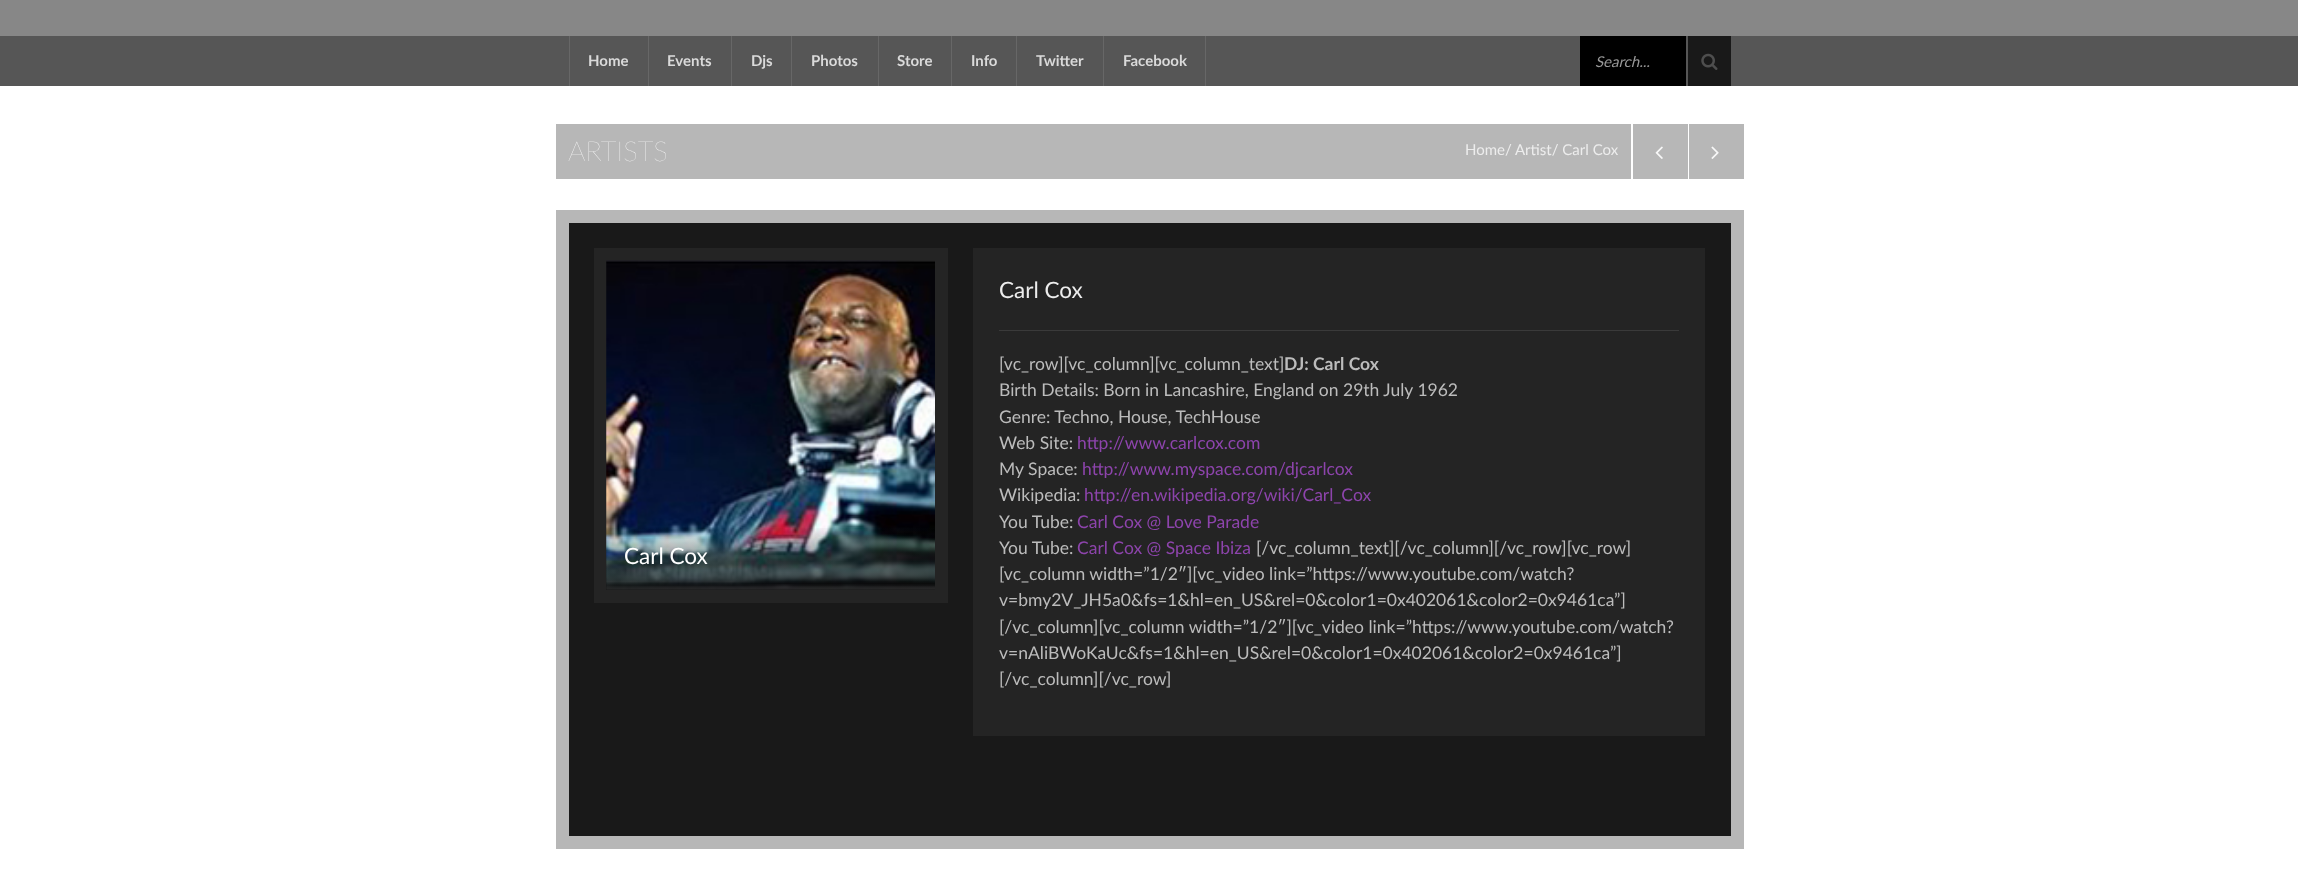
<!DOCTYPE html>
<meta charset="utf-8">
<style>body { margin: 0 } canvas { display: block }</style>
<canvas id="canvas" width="2298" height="882"></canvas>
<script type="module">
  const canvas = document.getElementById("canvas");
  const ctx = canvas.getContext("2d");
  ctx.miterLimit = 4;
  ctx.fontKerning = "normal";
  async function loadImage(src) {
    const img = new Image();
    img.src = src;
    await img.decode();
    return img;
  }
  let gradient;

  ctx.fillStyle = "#ffffff";
  ctx.fillRect(0, 0, 2298, 882);
  ctx.fillStyle = "#878787";
  ctx.fillRect(0, 0, 2298, 36);
  ctx.fillStyle = "#565656";
  ctx.fillRect(0, 36, 2298, 50);
  ctx.fillStyle = "#676767";
  ctx.fillRect(569, 36, 1, 50);
  ctx.font = "bold 15px Lato";
  ctx.fillStyle = "#dadada";
  ctx.fillText("Home", 588, 66);
  ctx.fillStyle = "#676767";
  ctx.fillRect(648, 36, 1, 50);
  ctx.fillStyle = "#dadada";
  ctx.fillText("Events", 667, 66);
  ctx.fillStyle = "#676767";
  ctx.fillRect(731, 36, 1, 50);
  ctx.fillStyle = "#dadada";
  ctx.fillText("Djs", 751, 66);
  ctx.fillStyle = "#676767";
  ctx.fillRect(791, 36, 1, 50);
  ctx.fillStyle = "#dadada";
  ctx.fillText("Photos", 811, 66);
  ctx.fillStyle = "#676767";
  ctx.fillRect(878, 36, 1, 50);
  ctx.fillStyle = "#dadada";
  ctx.fillText("Store", 897, 66);
  ctx.fillStyle = "#676767";
  ctx.fillRect(951, 36, 1, 50);
  ctx.fillStyle = "#dadada";
  ctx.fillText("Info", 971, 66);
  ctx.fillStyle = "#676767";
  ctx.fillRect(1016, 36, 1, 50);
  ctx.fillStyle = "#dadada";
  ctx.fillText("Twitter", 1036, 66);
  ctx.fillStyle = "#676767";
  ctx.fillRect(1205, 36, 1, 50);
  ctx.fillRect(1103, 36, 1, 50);
  ctx.fillStyle = "#dadada";
  ctx.fillText("Facebook", 1123, 66);
  ctx.fillStyle = "#000000";
  ctx.fillRect(1580, 36, 106, 50);
  ctx.font = "italic 15px Lato";
  ctx.fillStyle = "#999999";
  ctx.fillText("Search...", 1595, 67);
  ctx.fillStyle = "#191919";
  ctx.fillRect(1688, 36, 43, 50);
  ctx.drawImage(await loadImage("img1.png"), 1701, 53, 17, 17);
  ctx.fillStyle = "#b7b7b7";
  ctx.fillRect(556, 124, 1075, 55);
  ctx.font = "200 27.5px Lato";
  ctx.fillStyle = "#ffffff";
  ctx.fillText("ARTISTS", 568, 161);
  ctx.font = "15px Lato";
  ctx.fillStyle = "#ededed";
  ctx.fillText("Home/", 1465, 155);
  ctx.fillText("Artist/ Carl Cox", 1515, 155);
  ctx.fillStyle = "#b7b7b7";
  ctx.fillRect(1633, 124, 55, 55);
  ctx.drawImage(await loadImage("img2.png"), 1655, 146, 8, 13);
  ctx.fillRect(1689, 124, 55, 55);
  ctx.drawImage(await loadImage("img3.png"), 1711, 146, 8, 13);
  ctx.fillRect(556, 210, 1188, 639);
  ctx.fillStyle = "#191919";
  ctx.fillRect(569, 223, 1162, 613);
  ctx.fillStyle = "#242424";
  ctx.fillRect(594, 248, 354, 355);
  ctx.drawImage(await loadImage("img4.png"), 606, 260, 329, 330);
  gradient = ctx.createLinearGradient(771, 526, 771, 590);
  gradient.addColorStop(0, "rgba(14, 14, 14, 0)");
  gradient.addColorStop(1, "rgba(14, 14, 14, 0.85)");
  ctx.fillStyle = gradient;
  ctx.fillRect(606, 528, 329, 62);
  ctx.font = "22.5px Lato";
  ctx.fillStyle = "#ffffff";
  ctx.fillText("Carl Cox", 624, 564);
  ctx.fillStyle = "#242424";
  ctx.fillRect(973, 248, 732, 488);
  ctx.fillStyle = "#ededed";
  ctx.fillText("Carl Cox", 999, 298);
  ctx.fillStyle = "#3a3a3a";
  ctx.fillRect(999, 330, 680, 1);
  ctx.font = "17.5px Lato";
  ctx.fillStyle = "#bcbcbc";
  ctx.fillText("[vc_row][vc_column][vc_column_text]", 999, 370);
  ctx.font = "bold 17.5px Lato";
  ctx.fillText("DJ: Carl Cox", 1284, 370);
  ctx.font = "17.5px Lato";
  ctx.fillText("Birth Details: Born in Lancashire, England on 29th July 1962", 999, 396);
  ctx.fillText("Genre: Techno, House, TechHouse", 999, 423);
  ctx.fillText("Web Site:", 999, 449);
  ctx.fillStyle = "#8d44ac";
  ctx.fillText("http://www.carlcox.com", 1077, 449);
  ctx.fillStyle = "#bcbcbc";
  ctx.fillText("My Space:", 999, 475);
  ctx.fillStyle = "#8d44ac";
  ctx.fillText("http://www.myspace.com/djcarlcox", 1082, 475);
  ctx.fillStyle = "#bcbcbc";
  ctx.fillText("Wikipedia:", 999, 501);
  ctx.fillStyle = "#8d44ac";
  ctx.fillText("http://en.wikipedia.org/wiki/Carl_Cox", 1084, 501);
  ctx.fillStyle = "#bcbcbc";
  ctx.fillText("You Tube:", 999, 528);
  ctx.fillStyle = "#8d44ac";
  ctx.fillText("Carl Cox @ Love Parade", 1077, 528);
  ctx.fillStyle = "#bcbcbc";
  ctx.fillText("You Tube:", 999, 554);
  ctx.fillStyle = "#8d44ac";
  ctx.fillText("Carl Cox @ Space Ibiza", 1077, 554);
  ctx.fillStyle = "#bcbcbc";
  ctx.fillText("[/vc_column_text][/vc_column][/vc_row][vc_row]", 1256, 554);
  ctx.fillText("[vc_column width=”1/2″][vc_video link=”https://www.youtube.com/watch?", 999, 580);
  ctx.fillText("v=bmy2V_JH5a0&fs=1&hl=en_US&rel=0&color1=0x402061&color2=0x9461ca”]", 999, 606);
  ctx.fillText("[/vc_column][vc_column width=”1/2″][vc_video link=”https://www.youtube.com/watch?", 999, 633);
  ctx.fillText("v=nAliBWoKaUc&fs=1&hl=en_US&rel=0&color1=0x402061&color2=0x9461ca”]", 999, 659);
  ctx.fillText("[/vc_column][/vc_row]", 999, 685);
</script>
